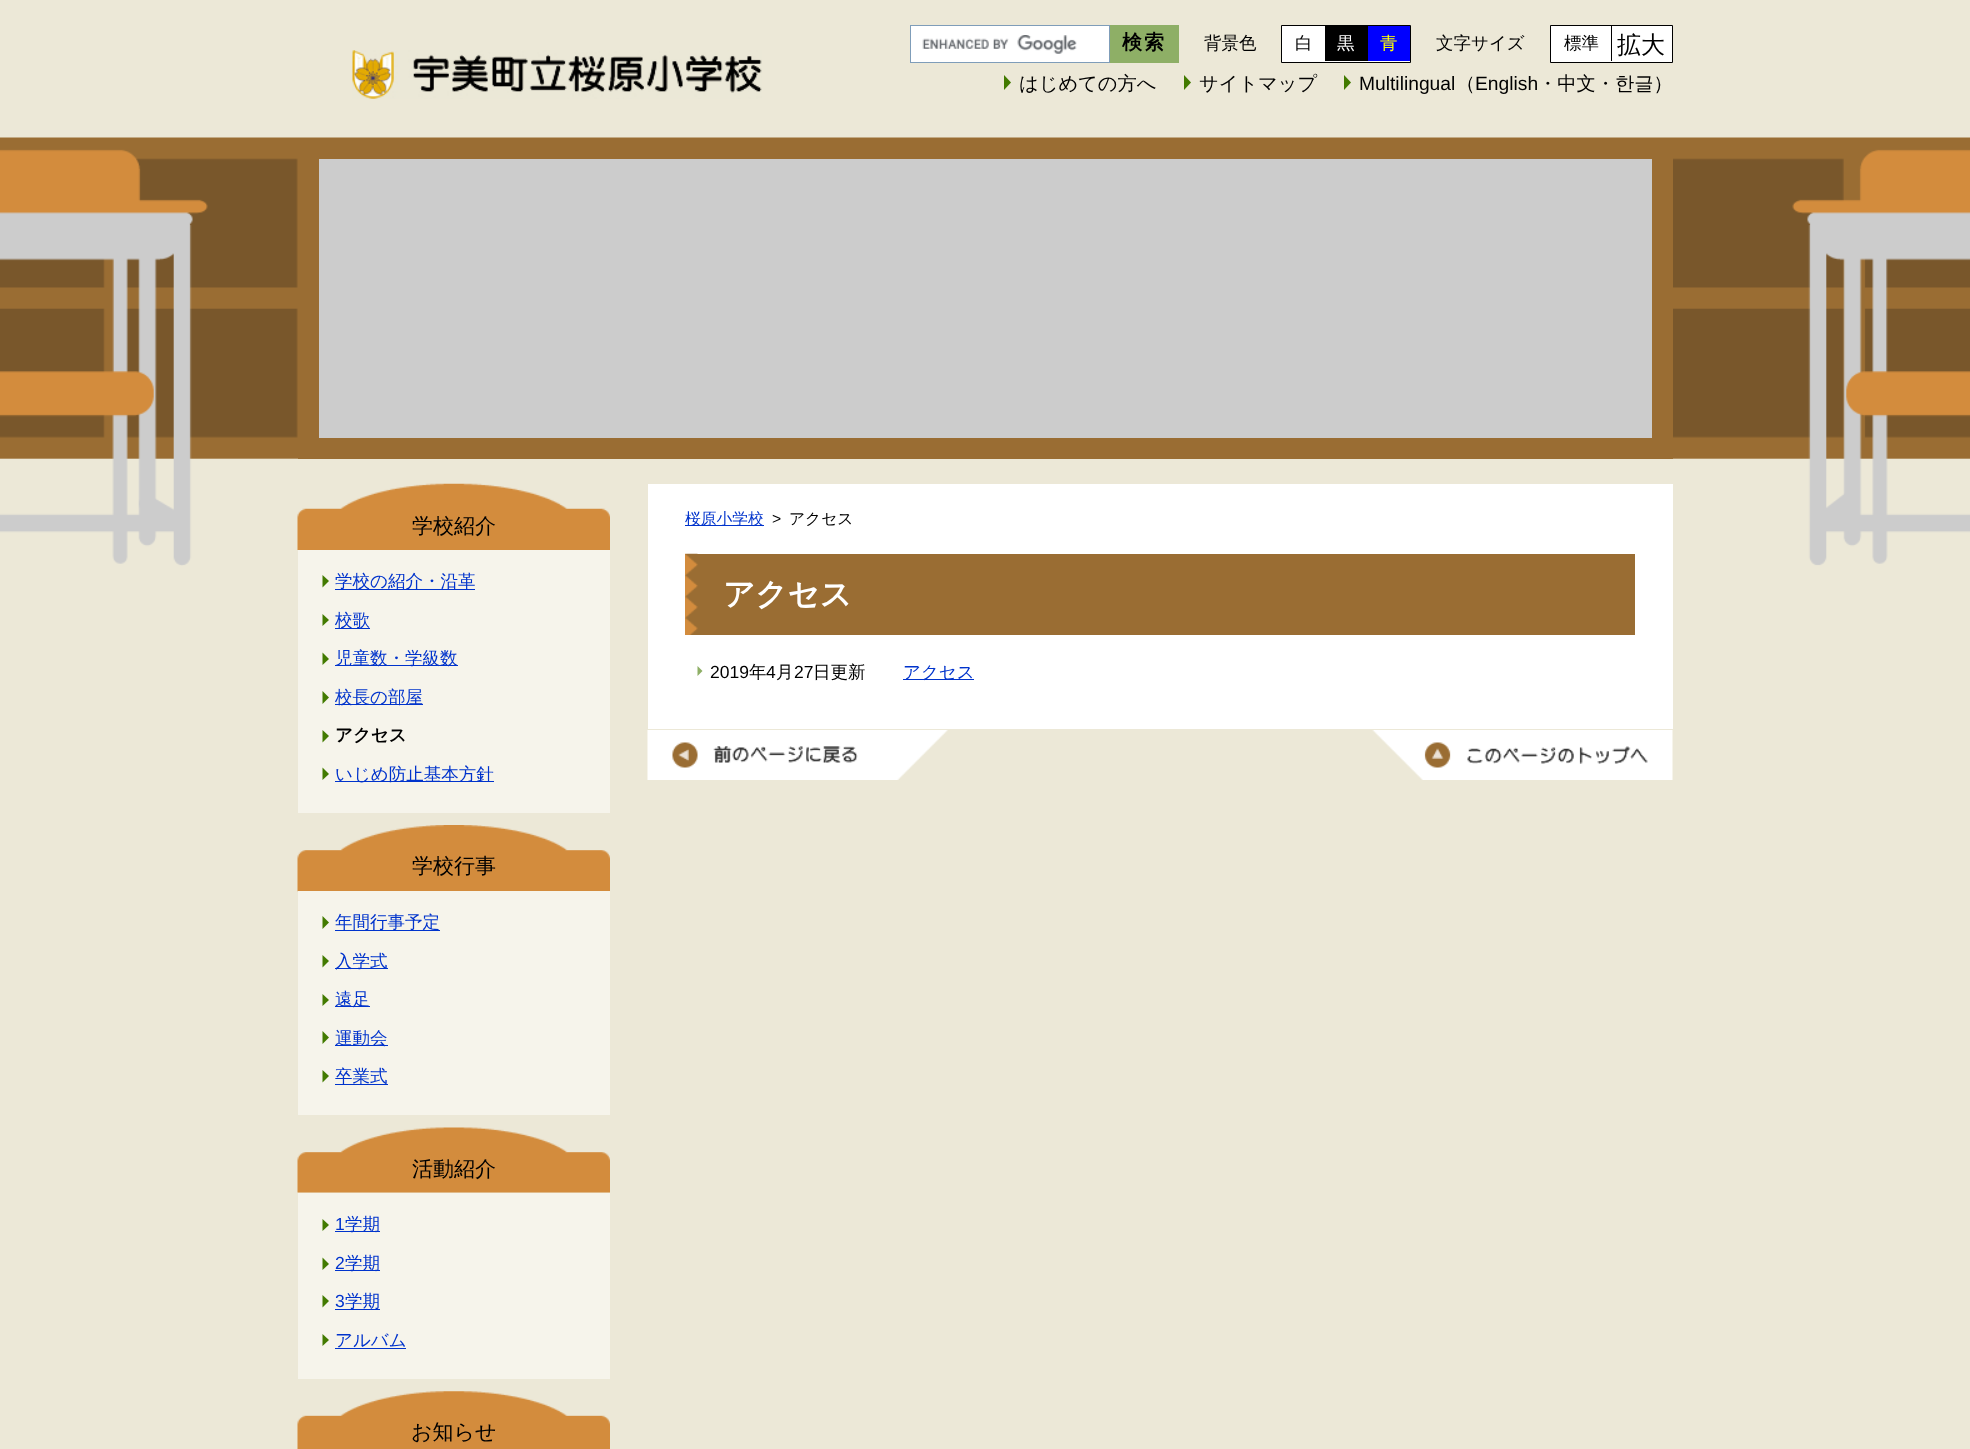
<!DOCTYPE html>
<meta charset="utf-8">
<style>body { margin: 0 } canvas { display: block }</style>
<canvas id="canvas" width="1970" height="1449"></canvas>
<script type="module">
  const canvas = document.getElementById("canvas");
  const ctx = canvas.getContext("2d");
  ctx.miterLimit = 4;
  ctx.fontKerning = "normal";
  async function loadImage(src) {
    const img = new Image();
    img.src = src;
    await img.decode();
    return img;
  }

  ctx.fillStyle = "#ece8d7";
  ctx.fillRect(0, 0, 1970, 1449);
  ctx.drawImage(await loadImage("img1.png"), 0, 137, 1970, 429);
  ctx.drawImage(await loadImage("img2.png"), 352, 50, 410, 49);
  ctx.fillStyle = "#ffffff";
  ctx.fillRect(911, 26, 198, 36);
  ctx.drawImage(await loadImage("img3.png"), 922, 35, 155, 19);
  ctx.strokeStyle = "#7f9db9";
  ctx.strokeRect(910.5, 25.5, 199, 37);
  ctx.fillStyle = "#8eaf66";
  ctx.fillRect(1110, 25, 69, 38);
  ctx.letterSpacing = "2px";
  ctx.font = "bold 20px WenQuanYi Zen Hei";
  ctx.fillStyle = "#000000";
  ctx.fillText("検索", 1122, 49);
  ctx.letterSpacing = "0px";
  ctx.font = "500 17.5px WenQuanYi Zen Hei";
  ctx.fillText("背景色", 1204, 49);
  ctx.fillStyle = "#ffffff";
  ctx.beginPath();
  ctx.rect(1281.5, 25.5, 129, 37);
  ctx.fill();
  ctx.strokeStyle = "#000000";
  ctx.stroke();
  ctx.fillStyle = "#000000";
  ctx.fillText("白", 1295, 49);
  ctx.fillRect(1325, 26, 43, 35);
  ctx.fillStyle = "#ffffff";
  ctx.fillText("黒", 1337, 49);
  ctx.fillStyle = "#0000ff";
  ctx.fillRect(1368, 26, 42, 35);
  ctx.fillStyle = "#ffff00";
  ctx.fillText("青", 1380, 49);
  ctx.fillStyle = "#000000";
  ctx.fillText("文字サイズ", 1436, 49);
  ctx.fillStyle = "#ffffff";
  ctx.beginPath();
  ctx.rect(1550.5, 25.5, 122, 37);
  ctx.fill();
  ctx.stroke();
  ctx.fillStyle = "#000000";
  ctx.fillRect(1611, 26, 1, 35);
  ctx.fillText("標準", 1564, 49);
  ctx.font = "500 24px WenQuanYi Zen Hei";
  ctx.fillText("拡大", 1617, 53);
  ctx.fillStyle = "#427a00";
  ctx.beginPath();
  ctx.moveTo(1004, 90);
  ctx.lineTo(1004, 75);
  ctx.lineTo(1011, 82.5);
  ctx.closePath();
  ctx.fill();
  ctx.font = "500 19.25px WenQuanYi Zen Hei";
  ctx.fillStyle = "#000000";
  ctx.fillText("はじめての方へ", 1019, 90);
  ctx.fillStyle = "#427a00";
  ctx.beginPath();
  ctx.moveTo(1184, 90);
  ctx.lineTo(1184, 75);
  ctx.lineTo(1191, 82.5);
  ctx.closePath();
  ctx.fill();
  ctx.fillStyle = "#000000";
  ctx.fillText("サイトマップ", 1199, 90);
  ctx.fillStyle = "#427a00";
  ctx.beginPath();
  ctx.moveTo(1344, 90);
  ctx.lineTo(1344, 75);
  ctx.lineTo(1351, 82.5);
  ctx.closePath();
  ctx.fill();
  ctx.font = "19.25px Liberation Sans";
  ctx.fillStyle = "#000000";
  ctx.fillText("Multilingual", 1359, 90);
  ctx.font = "500 19.25px WenQuanYi Zen Hei";
  ctx.fillText("（", 1456, 90);
  ctx.font = "19.25px Liberation Sans";
  ctx.fillText("English", 1475, 90);
  ctx.font = "500 19.25px WenQuanYi Zen Hei";
  ctx.fillText("・中文・한글）", 1538, 90);
  ctx.fillStyle = "#cccccc";
  ctx.beginPath();
  ctx.rect(308.5, 148.5, 1354, 300);
  ctx.fill();
  ctx.strokeStyle = "#9a6d33";
  ctx.lineWidth = 21;
  ctx.stroke();
  ctx.drawImage(await loadImage("img4.png"), 297, 483, 313, 67);
  ctx.font = "500 21px WenQuanYi Zen Hei";
  ctx.fillStyle = "#000000";
  ctx.fillText("学校紹介", 412, 533);
  ctx.fillStyle = "#f6f4eb";
  ctx.fillRect(298, 550, 312, 263);
  ctx.fillStyle = "#427a00";
  ctx.beginPath();
  ctx.moveTo(322.5, 587.5);
  ctx.lineTo(322.5, 575);
  ctx.lineTo(329, 581);
  ctx.closePath();
  ctx.fill();
  ctx.fillStyle = "#0033cc";
  ctx.fillRect(335, 589, 140, 1);
  ctx.font = "500 17.5px WenQuanYi Zen Hei";
  ctx.fillText("学校の紹介・沿革", 335, 587);
  ctx.fillStyle = "#427a00";
  ctx.beginPath();
  ctx.moveTo(322.5, 626);
  ctx.lineTo(322.5, 614);
  ctx.lineTo(329, 620);
  ctx.closePath();
  ctx.fill();
  ctx.fillStyle = "#0033cc";
  ctx.fillRect(335, 628, 35, 1);
  ctx.fillText("校歌", 335, 626);
  ctx.fillStyle = "#427a00";
  ctx.beginPath();
  ctx.moveTo(322.5, 665);
  ctx.lineTo(322.5, 652.5);
  ctx.lineTo(329, 659);
  ctx.closePath();
  ctx.fill();
  ctx.fillStyle = "#0033cc";
  ctx.fillRect(335, 665, 123, 1);
  ctx.fillText("児童数・学級数", 335, 664);
  ctx.fillStyle = "#427a00";
  ctx.beginPath();
  ctx.moveTo(322.5, 704);
  ctx.lineTo(322.5, 691);
  ctx.lineTo(329, 697.5);
  ctx.closePath();
  ctx.fill();
  ctx.fillStyle = "#0033cc";
  ctx.fillRect(335, 704, 88, 1);
  ctx.fillText("校長の部屋", 335, 703);
  ctx.fillStyle = "#427a00";
  ctx.beginPath();
  ctx.moveTo(322.5, 742.5);
  ctx.lineTo(322.5, 730);
  ctx.lineTo(329, 736);
  ctx.closePath();
  ctx.fill();
  ctx.font = "bold 17.5px WenQuanYi Zen Hei";
  ctx.fillStyle = "#000000";
  ctx.fillText("アクセス", 335, 741);
  ctx.fillStyle = "#427a00";
  ctx.beginPath();
  ctx.moveTo(322.5, 780);
  ctx.lineTo(322.5, 767.5);
  ctx.lineTo(329, 774);
  ctx.closePath();
  ctx.fill();
  ctx.fillStyle = "#0033cc";
  ctx.fillRect(335, 781, 159, 1);
  ctx.font = "500 17.5px WenQuanYi Zen Hei";
  ctx.fillText("いじめ防止基本方針", 335, 780);
  ctx.drawImage(await loadImage("img5.png"), 297, 825, 313, 67);
  ctx.font = "500 21px WenQuanYi Zen Hei";
  ctx.fillStyle = "#000000";
  ctx.fillText("学校行事", 412, 873);
  ctx.fillStyle = "#f6f4eb";
  ctx.fillRect(298, 891, 312, 224);
  ctx.fillStyle = "#427a00";
  ctx.beginPath();
  ctx.moveTo(322.5, 929);
  ctx.lineTo(322.5, 916);
  ctx.lineTo(329, 922.5);
  ctx.closePath();
  ctx.fill();
  ctx.fillStyle = "#0033cc";
  ctx.fillRect(335, 930, 105, 1);
  ctx.font = "500 17.5px WenQuanYi Zen Hei";
  ctx.fillText("年間行事予定", 335, 928);
  ctx.fillStyle = "#427a00";
  ctx.beginPath();
  ctx.moveTo(322.5, 967.5);
  ctx.lineTo(322.5, 955);
  ctx.lineTo(329, 961);
  ctx.closePath();
  ctx.fill();
  ctx.fillStyle = "#0033cc";
  ctx.fillRect(335, 968, 53, 1);
  ctx.fillText("入学式", 335, 967);
  ctx.fillStyle = "#427a00";
  ctx.beginPath();
  ctx.moveTo(322.5, 1006);
  ctx.lineTo(322.5, 994);
  ctx.lineTo(329, 1000);
  ctx.closePath();
  ctx.fill();
  ctx.fillStyle = "#0033cc";
  ctx.fillRect(335, 1006, 35, 1);
  ctx.fillText("遠足", 335, 1005);
  ctx.fillStyle = "#427a00";
  ctx.beginPath();
  ctx.moveTo(322.5, 1044);
  ctx.lineTo(322.5, 1031);
  ctx.lineTo(329, 1037.5);
  ctx.closePath();
  ctx.fill();
  ctx.fillStyle = "#0033cc";
  ctx.fillRect(335, 1045, 53, 1);
  ctx.fillText("運動会", 335, 1044);
  ctx.fillStyle = "#427a00";
  ctx.beginPath();
  ctx.moveTo(322.5, 1082.5);
  ctx.lineTo(322.5, 1070);
  ctx.lineTo(329, 1076);
  ctx.closePath();
  ctx.fill();
  ctx.fillStyle = "#0033cc";
  ctx.fillRect(335, 1084, 53, 1);
  ctx.fillText("卒業式", 335, 1082);
  ctx.drawImage(await loadImage("img6.png"), 297, 1127, 313, 66);
  ctx.font = "500 21px WenQuanYi Zen Hei";
  ctx.fillStyle = "#000000";
  ctx.fillText("活動紹介", 412, 1176);
  ctx.fillStyle = "#f6f4eb";
  ctx.fillRect(298, 1193, 312, 186);
  ctx.fillStyle = "#427a00";
  ctx.beginPath();
  ctx.moveTo(322.5, 1231);
  ctx.lineTo(322.5, 1219);
  ctx.lineTo(329, 1225);
  ctx.closePath();
  ctx.fill();
  ctx.font = "17.5px Liberation Sans";
  ctx.fillStyle = "#0033cc";
  ctx.fillText("1", 335, 1230);
  ctx.fillRect(335, 1231, 45, 1);
  ctx.font = "500 17.5px WenQuanYi Zen Hei";
  ctx.fillText("学期", 345, 1230);
  ctx.fillStyle = "#427a00";
  ctx.beginPath();
  ctx.moveTo(322.5, 1270);
  ctx.lineTo(322.5, 1257.5);
  ctx.lineTo(329, 1264);
  ctx.closePath();
  ctx.fill();
  ctx.font = "17.5px Liberation Sans";
  ctx.fillStyle = "#0033cc";
  ctx.fillText("2", 335, 1269);
  ctx.fillRect(335, 1270, 45, 1);
  ctx.font = "500 17.5px WenQuanYi Zen Hei";
  ctx.fillText("学期", 345, 1269);
  ctx.fillStyle = "#427a00";
  ctx.beginPath();
  ctx.moveTo(322.5, 1307.5);
  ctx.lineTo(322.5, 1295);
  ctx.lineTo(329, 1301);
  ctx.closePath();
  ctx.fill();
  ctx.font = "17.5px Liberation Sans";
  ctx.fillStyle = "#0033cc";
  ctx.fillText("3", 335, 1307);
  ctx.fillRect(335, 1309, 45, 1);
  ctx.font = "500 17.5px WenQuanYi Zen Hei";
  ctx.fillText("学期", 345, 1307);
  ctx.fillStyle = "#427a00";
  ctx.beginPath();
  ctx.moveTo(322.5, 1346);
  ctx.lineTo(322.5, 1334);
  ctx.lineTo(329, 1340);
  ctx.closePath();
  ctx.fill();
  ctx.fillStyle = "#0033cc";
  ctx.fillText("アルバム", 335, 1346);
  ctx.fillRect(335, 1348, 71, 1);
  ctx.drawImage(await loadImage("img7.png"), 297, 1391, 313, 58);
  ctx.font = "500 21px WenQuanYi Zen Hei";
  ctx.fillStyle = "#000000";
  ctx.fillText("お知らせ", 411, 1439);
  ctx.fillStyle = "#ffffff";
  ctx.fillRect(648, 484, 1025, 245);
  ctx.fillStyle = "#0033cc";
  ctx.fillRect(685, 525, 79, 1);
  ctx.font = "500 15.75px WenQuanYi Zen Hei";
  ctx.fillText("桜原小学校", 685, 524);
  ctx.font = "15.75px Liberation Sans";
  ctx.fillStyle = "#000000";
  ctx.fillText(">", 772, 524);
  ctx.font = "500 15.75px WenQuanYi Zen Hei";
  ctx.fillText("アクセス", 789, 524);
  ctx.fillStyle = "#9a6d33";
  ctx.fillRect(697, 554, 938, 81);
  ctx.drawImage(await loadImage("img8.png"), 685, 553, 13, 82);
  ctx.font = "bold 31.5px WenQuanYi Zen Hei";
  ctx.fillStyle = "#ffffff";
  ctx.fillText("アクセス", 723, 605);
  ctx.fillStyle = "#8eaf66";
  ctx.beginPath();
  ctx.moveTo(697.5, 676);
  ctx.lineTo(697.5, 666);
  ctx.lineTo(702.5, 671);
  ctx.closePath();
  ctx.fill();
  ctx.font = "17.5px Liberation Sans";
  ctx.fillStyle = "#000000";
  ctx.fillText("2019", 710, 678);
  ctx.font = "500 17.5px WenQuanYi Zen Hei";
  ctx.fillText("年", 749, 678);
  ctx.font = "17.5px Liberation Sans";
  ctx.fillText("4", 766, 678);
  ctx.font = "500 17.5px WenQuanYi Zen Hei";
  ctx.fillText("月", 776, 678);
  ctx.font = "17.5px Liberation Sans";
  ctx.fillText("27", 794, 678);
  ctx.font = "500 17.5px WenQuanYi Zen Hei";
  ctx.fillText("日更新", 813, 678);
  ctx.fillStyle = "#0033cc";
  ctx.fillRect(903, 679, 71, 1);
  ctx.fillText("アクセス", 903, 678);
  ctx.drawImage(await loadImage("img9.png"), 647, 730, 301, 50);
  ctx.drawImage(await loadImage("img10.png"), 1372, 730, 301, 50);
</script>
